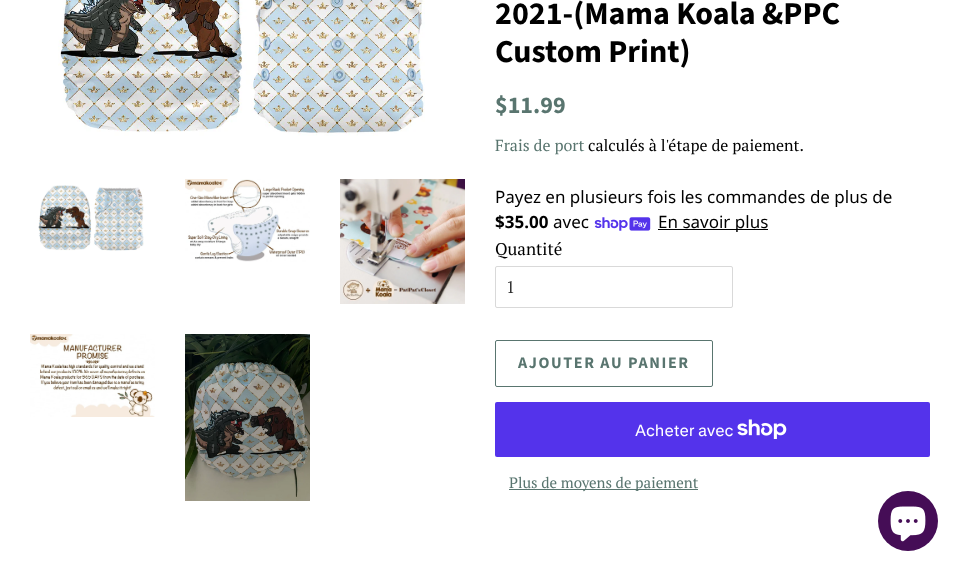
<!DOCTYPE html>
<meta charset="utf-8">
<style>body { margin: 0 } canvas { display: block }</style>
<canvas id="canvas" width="960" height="572"></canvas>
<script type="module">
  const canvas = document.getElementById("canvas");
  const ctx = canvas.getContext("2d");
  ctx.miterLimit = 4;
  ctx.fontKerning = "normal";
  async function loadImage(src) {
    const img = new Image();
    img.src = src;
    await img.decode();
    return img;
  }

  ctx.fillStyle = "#ffffff";
  ctx.fillRect(0, 0, 960, 572);
  ctx.drawImage(await loadImage("img1.png"), 58, 0, 367, 136);
  ctx.drawImage(await loadImage("img2.png"), 38, 185, 106, 66);
  ctx.drawImage(await loadImage("img3.png"), 185, 179, 125, 83);
  ctx.drawImage(await loadImage("img4.png"), 340, 179, 125, 125);
  ctx.drawImage(await loadImage("img5.png"), 30, 334, 125, 83);
  ctx.drawImage(await loadImage("img6.png"), 185, 334, 125, 167);
  ctx.font = "bold 32px Source Sans Pro";
  ctx.fillStyle = "#000000";
  ctx.fillText("2021-(Mama Koala &PPC", 495, 24);
  ctx.fillText("Custom Print)", 495, 62);
  ctx.font = "bold 24px Source Sans Pro";
  ctx.fillStyle = "#59756f";
  ctx.fillText("$11.99", 495, 113);
  ctx.font = "16px PT Serif";
  ctx.fillText("Frais de port", 495, 151);
  ctx.fillStyle = "#000000";
  ctx.fillText("calculés à l'étape de paiement.", 588, 151);
  ctx.font = "17px Noto Sans";
  ctx.fillText("Payez en plusieurs fois les commandes de plus de", 495, 203);
  ctx.font = "bold 17px Noto Sans";
  ctx.fillText("$35.00", 495, 228);
  ctx.font = "17px Noto Sans";
  ctx.fillText("avec", 553, 228);
  ctx.drawImage(await loadImage("img7.png"), 594, 217, 57, 14);
  ctx.fillRect(658, 229, 110, 1);
  ctx.fillText("En savoir plus", 658, 228);
  ctx.font = "17px PT Serif";
  ctx.fillText("Quantité", 495, 255);
  ctx.beginPath();
  ctx.roundRect(495.5, 266.5, 237, 41, 1.5);
  ctx.strokeStyle = "#d9d9d9";
  ctx.stroke();
  ctx.fillStyle = "#333333";
  ctx.fillText("1", 506, 293);
  ctx.beginPath();
  ctx.roundRect(495.5, 340.5, 217, 46, 1.5);
  ctx.strokeStyle = "#59756f";
  ctx.stroke();
  ctx.letterSpacing = "1.6px";
  ctx.font = "bold 16px Source Sans Pro";
  ctx.fillStyle = "#59756f";
  ctx.fillText("AJOUTER AU PANIER", 518, 368);
  ctx.fillStyle = "#5433eb";
  ctx.beginPath();
  ctx.roundRect(495, 402, 435, 55, 2);
  ctx.fill();
  ctx.letterSpacing = "0px";
  ctx.font = "16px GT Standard";
  ctx.fillStyle = "#ffffff";
  ctx.fillText("Acheter avec", 635, 436);
  ctx.drawImage(await loadImage("img8.png"), 737, 419, 50, 20);
  ctx.fillStyle = "#59756f";
  ctx.fillRect(509, 489, 189, 1);
  ctx.font = "15px PT Serif";
  ctx.fillText("Plus de moyens de paiement", 509, 488);
  ctx.fillStyle = "#450d56";
  ctx.beginPath();
  ctx.arc(908, 521, 30, 0, Math.PI * 2);
  ctx.fill();
  ctx.drawImage(await loadImage("img9.png"), 890, 506, 36, 36);
</script>
